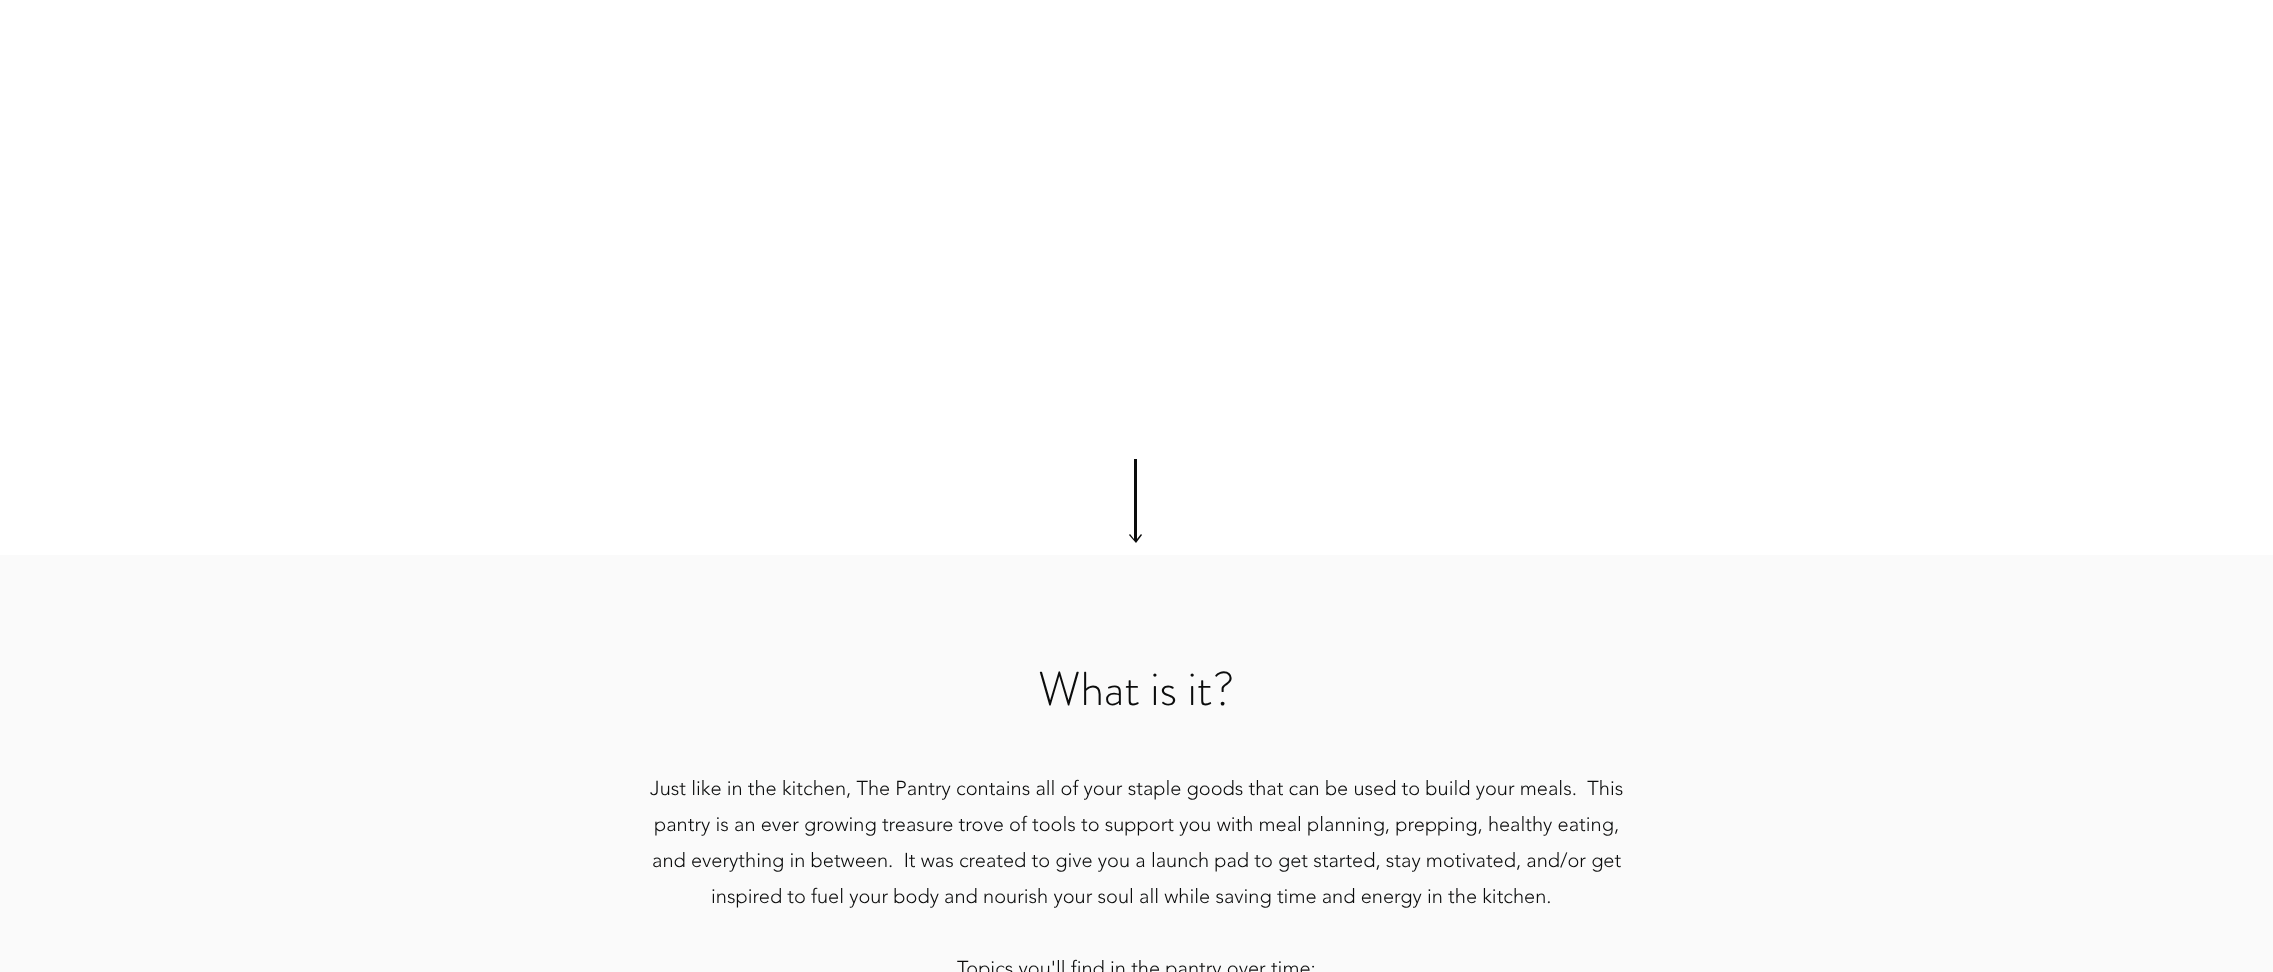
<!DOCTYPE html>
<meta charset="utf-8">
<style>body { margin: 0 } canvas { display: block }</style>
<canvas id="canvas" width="2273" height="972"></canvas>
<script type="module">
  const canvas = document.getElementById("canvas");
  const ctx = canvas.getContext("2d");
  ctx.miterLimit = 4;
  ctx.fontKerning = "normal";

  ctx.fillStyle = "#ffffff";
  ctx.fillRect(0, 0, 2273, 972);
  ctx.fillStyle = "#0b0c0c";
  ctx.beginPath();
  ctx.moveTo(1129, 535);
  ctx.lineTo(1136, 543);
  ctx.lineTo(1142, 535);
  ctx.lineTo(1141, 534);
  ctx.lineTo(1137, 539);
  ctx.lineTo(1137, 459);
  ctx.lineTo(1134, 459);
  ctx.lineTo(1134, 539);
  ctx.lineTo(1130, 534);
  ctx.closePath();
  ctx.fill();
  ctx.fillStyle = "#fafafa";
  ctx.fillRect(0, 555, 2273, 417);
  ctx.font = "300 47.5px 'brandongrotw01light'";
  ctx.fillStyle = "#0b0c0c";
  ctx.fillText("What is it?", 1038, 705);
  ctx.font = "300 20px 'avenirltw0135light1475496'";
  ctx.fillText("Just like in the kitchen, The Pantry contains all of your staple goods that can be used to build your meals.  This", 650, 795);
  ctx.fillText("pantry is an ever growing treasure trove of tools to support you with meal planning, prepping, healthy eating,", 654, 831);
  ctx.fillText("and everything in between.  It was created to give you a launch pad to get started, stay motivated, and/or get", 652, 867);
  ctx.fillText("inspired to fuel your body and nourish your soul all while saving time and energy in the kitchen.", 711, 903);
  ctx.fillText("Topics you'll find in the pantry over time:", 957, 975);
</script>
